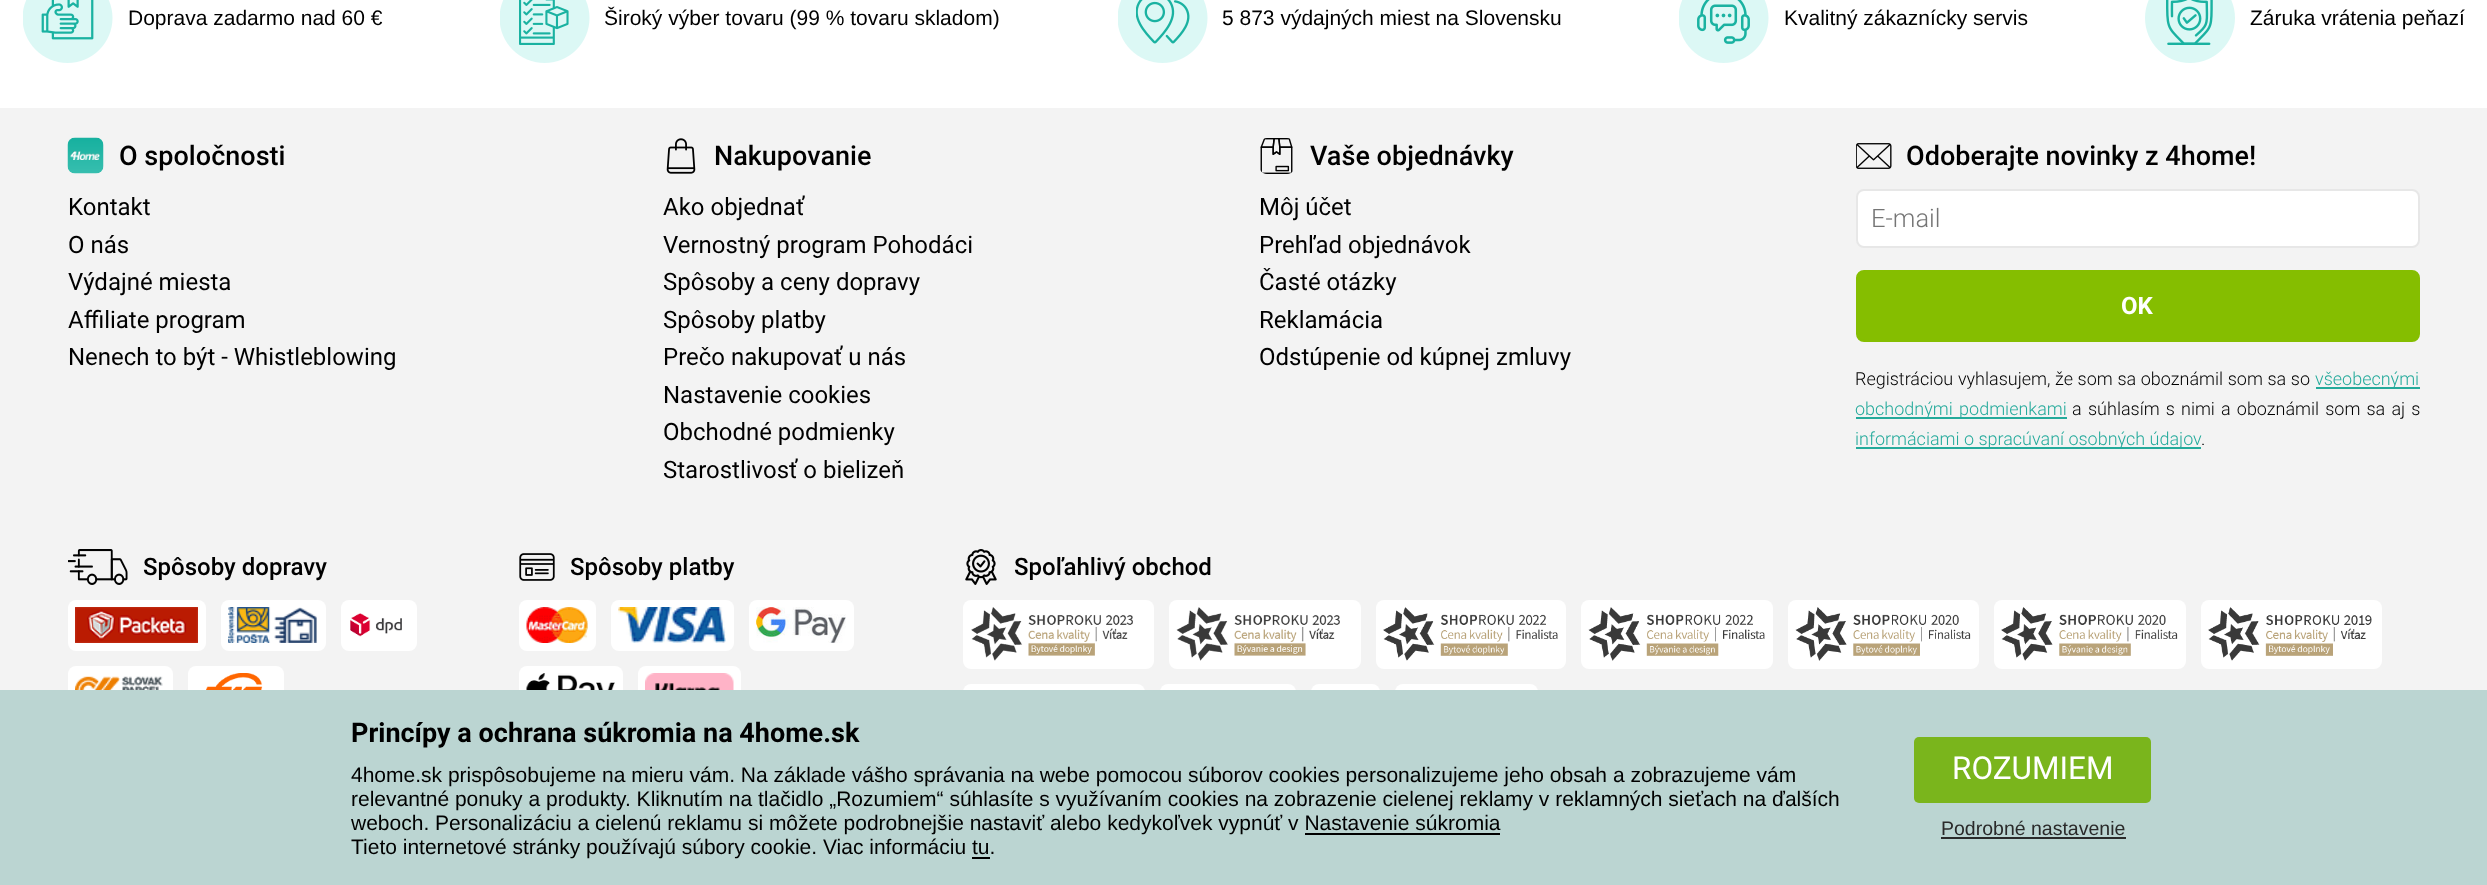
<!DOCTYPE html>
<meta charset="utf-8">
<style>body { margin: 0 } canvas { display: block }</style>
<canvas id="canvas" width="2487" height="885"></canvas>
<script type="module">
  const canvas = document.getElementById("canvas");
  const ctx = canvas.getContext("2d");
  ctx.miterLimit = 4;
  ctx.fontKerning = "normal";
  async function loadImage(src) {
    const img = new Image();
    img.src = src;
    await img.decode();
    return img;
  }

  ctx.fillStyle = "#ffffff";
  ctx.fillRect(0, 0, 2487, 885);
  ctx.drawImage(await loadImage("img1.png"), 23, 0, 90, 63);
  ctx.font = "21px Liberation Sans";
  ctx.fillStyle = "#000000";
  ctx.fillText("Doprava zadarmo nad 60 €", 128, 25);
  ctx.drawImage(await loadImage("img2.png"), 500, 0, 90, 63);
  ctx.fillText("Široký výber tovaru (99 % tovaru skladom)", 604, 25);
  ctx.drawImage(await loadImage("img3.png"), 1118, 0, 90, 63);
  ctx.fillText("5 873 výdajných miest na Slovensku", 1222, 25);
  ctx.drawImage(await loadImage("img4.png"), 1679, 0, 90, 63);
  ctx.fillText("Kvalitný zákaznícky servis", 1784, 25);
  ctx.drawImage(await loadImage("img5.png"), 2145, 0, 90, 63);
  ctx.fillText("Záruka vrátenia peňazí", 2250, 25);
  ctx.fillStyle = "#f3f3f3";
  ctx.fillRect(0, 108, 2487, 582);
  ctx.drawImage(await loadImage("img6.png"), 67, 137, 37, 37);
  ctx.font = "500 27px Roboto";
  ctx.fillStyle = "#000000";
  ctx.fillText("O spoločnosti", 119, 165);
  ctx.font = "24px Roboto";
  ctx.fillText("Kontakt", 68, 215);
  ctx.fillText("O nás", 68, 253);
  ctx.fillText("Výdajné miesta", 68, 290);
  ctx.fillText("Affiliate program", 68, 328);
  ctx.fillText("Nenech to být - Whistleblowing", 68, 365);
  ctx.drawImage(await loadImage("img7.png"), 666, 138, 30, 36);
  ctx.font = "500 27px Roboto";
  ctx.fillText("Nakupovanie", 714, 165);
  ctx.font = "24px Roboto";
  ctx.fillText("Ako objednať", 663, 215);
  ctx.fillText("Vernostný program Pohodáci", 663, 253);
  ctx.fillText("Spôsoby a ceny dopravy", 663, 290);
  ctx.fillText("Spôsoby platby", 663, 328);
  ctx.fillText("Prečo nakupovať u nás", 663, 365);
  ctx.fillText("Nastavenie cookies", 663, 403);
  ctx.fillText("Obchodné podmienky", 663, 440);
  ctx.fillText("Starostlivosť o bielizeň", 663, 478);
  ctx.drawImage(await loadImage("img8.png"), 1260, 138, 33, 36);
  ctx.font = "500 27px Roboto";
  ctx.fillText("Vaše objednávky", 1310, 165);
  ctx.font = "24px Roboto";
  ctx.fillText("Môj účet", 1259, 215);
  ctx.fillText("Prehľad objednávok", 1259, 253);
  ctx.fillText("Časté otázky", 1259, 290);
  ctx.fillText("Reklamácia", 1259, 328);
  ctx.fillText("Odstúpenie od kúpnej zmluvy", 1259, 365);
  ctx.drawImage(await loadImage("img9.png"), 1856, 143, 36, 26);
  ctx.font = "500 27px Roboto";
  ctx.fillText("Odoberajte novinky z 4home!", 1906, 165);
  ctx.fillStyle = "#ffffff";
  ctx.beginPath();
  ctx.roundRect(1857, 190, 562, 57, 7);
  ctx.fill();
  ctx.strokeStyle = "#e7e7e7";
  ctx.lineWidth = 2;
  ctx.stroke();
  ctx.font = "300 25.5px Roboto";
  ctx.fillStyle = "#757575";
  ctx.fillText("E-mail", 1871, 227);
  ctx.fillStyle = "#85be00";
  ctx.beginPath();
  ctx.roundRect(1857, 271, 562, 70, 7);
  ctx.fill();
  ctx.strokeStyle = "#85be00";
  ctx.stroke();
  ctx.font = "bold 24px Roboto";
  ctx.fillStyle = "#ffffff";
  ctx.fillText("OK", 2121, 314);
  ctx.wordSpacing = "0.25px";
  ctx.font = "300 18px Roboto";
  ctx.fillStyle = "#000000";
  ctx.fillText("Registráciou vyhlasujem, že som sa oboznámil som sa so", 1855, 385);
  ctx.fillStyle = "#24aa9b";
  ctx.fillRect(2316, 387, 104, 2);
  ctx.wordSpacing = "0px";
  ctx.fillText("všeobecnými", 2315, 385);
  ctx.fillRect(1856, 417, 211, 2);
  ctx.wordSpacing = "2px";
  ctx.fillText("obchodnými podmienkami", 1855, 415);
  ctx.wordSpacing = "0px";
  ctx.fillStyle = "#000000";
  ctx.fillText("a", 2072, 415);
  ctx.wordSpacing = "1.75px";
  ctx.fillText("súhlasím s nimi a oboznámil som sa aj s", 2088, 415);
  ctx.fillStyle = "#24aa9b";
  ctx.fillRect(1856, 447, 345, 2);
  ctx.wordSpacing = "0px";
  ctx.fillText("informáciami o spracúvaní osobných údajov", 1855, 445);
  ctx.fillStyle = "#000000";
  ctx.fillText(".", 2201, 445);
  ctx.drawImage(await loadImage("img10.png"), 68, 549, 60, 36);
  ctx.font = "500 24px Roboto";
  ctx.fillText("Spôsoby dopravy", 143, 575);
  ctx.fillStyle = "#ffffff";
  ctx.beginPath();
  ctx.roundRect(68, 600, 138, 51, 8);
  ctx.fill();
  ctx.drawImage(await loadImage("img11.png"), 75, 607, 123, 36);
  ctx.beginPath();
  ctx.roundRect(221, 600, 105, 51, 8);
  ctx.fill();
  ctx.drawImage(await loadImage("img12.png"), 228, 607, 89, 36);
  ctx.beginPath();
  ctx.roundRect(341, 600, 76, 51, 8);
  ctx.fill();
  ctx.drawImage(await loadImage("img13.png"), 350, 613, 52, 24);
  ctx.beginPath();
  ctx.roundRect(68, 666, 105, 51, 8);
  ctx.fill();
  ctx.drawImage(await loadImage("img14.png"), 75, 676, 88, 14);
  ctx.beginPath();
  ctx.roundRect(188, 666, 96, 51, 8);
  ctx.fill();
  ctx.drawImage(await loadImage("img15.png"), 205, 673, 58, 17);
  ctx.drawImage(await loadImage("img16.png"), 519, 553, 36, 28);
  ctx.fillStyle = "#000000";
  ctx.fillText("Spôsoby platby", 570, 575);
  ctx.fillStyle = "#ffffff";
  ctx.beginPath();
  ctx.roundRect(519, 600, 77, 51, 8);
  ctx.fill();
  ctx.drawImage(await loadImage("img17.png"), 526, 607, 62, 36);
  ctx.beginPath();
  ctx.roundRect(611, 600, 123, 51, 8);
  ctx.fill();
  ctx.drawImage(await loadImage("img18.png"), 618, 607, 108, 36);
  ctx.beginPath();
  ctx.roundRect(749, 600, 105, 51, 8);
  ctx.fill();
  ctx.drawImage(await loadImage("img19.png"), 756, 607, 90, 36);
  ctx.beginPath();
  ctx.roundRect(519, 666, 104, 51, 8);
  ctx.fill();
  ctx.drawImage(await loadImage("img20.png"), 526, 673, 89, 17);
  ctx.beginPath();
  ctx.roundRect(638, 666, 103, 51, 8);
  ctx.fill();
  ctx.drawImage(await loadImage("img21.png"), 645, 673, 89, 17);
  ctx.drawImage(await loadImage("img22.png"), 965, 549, 32, 36);
  ctx.fillStyle = "#000000";
  ctx.fillText("Spoľahlivý obchod", 1014, 575);
  ctx.fillStyle = "#ffffff";
  ctx.beginPath();
  ctx.roundRect(963, 600, 191, 69, 8);
  ctx.fill();
  ctx.drawImage(await loadImage("img23.png"), 971, 607, 162, 54);
  ctx.beginPath();
  ctx.roundRect(1169, 600, 192, 69, 8);
  ctx.fill();
  ctx.drawImage(await loadImage("img24.png"), 1176, 607, 164, 54);
  ctx.beginPath();
  ctx.roundRect(1376, 600, 190, 69, 8);
  ctx.fill();
  ctx.drawImage(await loadImage("img25.png"), 1383, 607, 175, 54);
  ctx.beginPath();
  ctx.roundRect(1581, 600, 192, 69, 8);
  ctx.fill();
  ctx.drawImage(await loadImage("img26.png"), 1588, 607, 177, 54);
  ctx.beginPath();
  ctx.roundRect(1788, 600, 191, 69, 8);
  ctx.fill();
  ctx.drawImage(await loadImage("img27.png"), 1795, 607, 176, 54);
  ctx.beginPath();
  ctx.roundRect(1994, 600, 192, 69, 8);
  ctx.fill();
  ctx.drawImage(await loadImage("img28.png"), 2001, 607, 177, 54);
  ctx.beginPath();
  ctx.roundRect(2201, 600, 181, 69, 8);
  ctx.fill();
  ctx.drawImage(await loadImage("img29.png"), 2208, 607, 164, 54);
  ctx.beginPath();
  ctx.roundRect(963, 684, 182, 69, 8);
  ctx.fill();
  ctx.beginPath();
  ctx.roundRect(1160, 684, 136, 69, 8);
  ctx.fill();
  ctx.beginPath();
  ctx.roundRect(1311, 684, 69, 69, 8);
  ctx.fill();
  ctx.beginPath();
  ctx.roundRect(1395, 684, 143, 69, 8);
  ctx.fill();
  ctx.fillStyle = "#bbd5d2";
  ctx.fillRect(0, 690, 2487, 195);
  ctx.font = "bold 27px Roboto";
  ctx.fillStyle = "#000000";
  ctx.fillText("Princípy a ochrana súkromia na 4home.sk", 351, 742);
  ctx.font = "21px Liberation Sans";
  ctx.fillText("4home.sk prispôsobujeme na mieru vám. Na základe vášho správania na webe pomocou súborov cookies personalizujeme jeho obsah a zobrazujeme vám", 351, 782);
  ctx.fillText("relevantné ponuky a produkty. Kliknutím na tlačidlo „Rozumiem“ súhlasíte s využívaním cookies na zobrazenie cielenej reklamy v reklamných sieťach na ďalších", 351, 806);
  ctx.fillText("weboch. Personalizáciu a cielenú reklamu si môžete podrobnejšie nastaviť alebo kedykoľvek vypnúť v Nastavenie súkromia", 351, 830);
  ctx.fillRect(1305, 833, 195, 2);
  ctx.fillText("Tieto internetové stránky používajú súbory cookie. Viac informáciu tu.", 351, 854);
  ctx.fillRect(972, 857, 18, 2);
  ctx.fillStyle = "#7ab51c";
  ctx.beginPath();
  ctx.roundRect(1914, 737, 237, 66, 5);
  ctx.fill();
  ctx.font = "31.5px Roboto";
  ctx.fillStyle = "#ffffff";
  ctx.fillText("ROZUMIEM", 1952, 779);
  ctx.font = "19.5px Liberation Sans";
  ctx.fillStyle = "#2a2a2a";
  ctx.fillText("Podrobné nastavenie", 1941, 835);
  ctx.fillRect(1941, 837, 185, 2);
</script>
